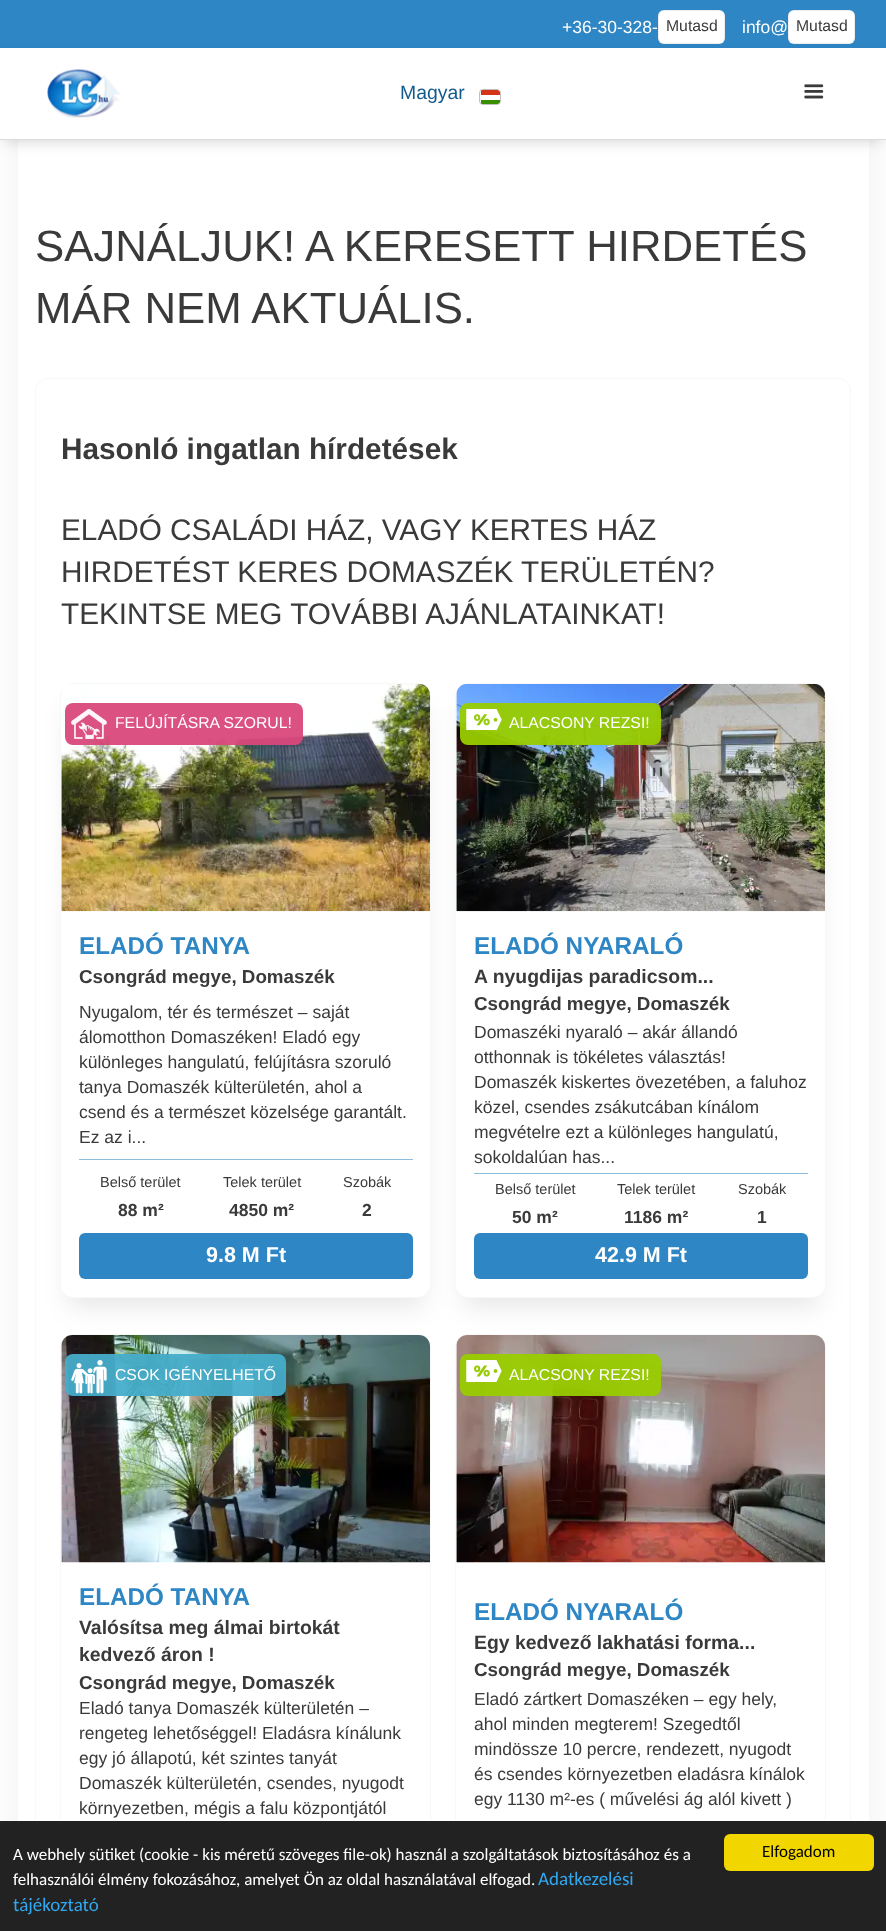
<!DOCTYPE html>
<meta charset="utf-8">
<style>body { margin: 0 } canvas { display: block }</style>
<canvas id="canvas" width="886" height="1931"></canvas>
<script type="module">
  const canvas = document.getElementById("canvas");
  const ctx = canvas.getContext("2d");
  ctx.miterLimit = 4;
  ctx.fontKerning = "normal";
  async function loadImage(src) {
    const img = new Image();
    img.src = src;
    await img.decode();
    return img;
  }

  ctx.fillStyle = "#ffffff";
  ctx.fillRect(0, 0, 886, 1931);
  ctx.fillStyle = "rgba(0, 0, 0, 0.06)";
  ctx.filter = "blur(21px)";
  ctx.beginPath();
  ctx.roundRect(18, 64, 851, 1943, 13);
  ctx.fill();
  ctx.filter = "none";
  ctx.fillStyle = "#2e86c4";
  ctx.fillRect(0, 0, 886, 48);
  ctx.font = "17.5px Liberation Sans";
  ctx.fillStyle = "#ffffff";
  ctx.fillText("+36-30-328-", 562, 33);
  ctx.beginPath();
  ctx.roundRect(658, 10, 67, 34, 6);
  ctx.fill();
  ctx.beginPath();
  ctx.roundRect(658.5, 10.5, 66, 33, 5.5);
  ctx.strokeStyle = "rgba(81, 81, 81, 0.1)";
  ctx.stroke();
  ctx.font = "15.75px Liberation Sans";
  ctx.fillStyle = "#3a3a3a";
  ctx.fillText("Mutasd", 666, 31);
  ctx.font = "17.5px Liberation Sans";
  ctx.fillStyle = "#ffffff";
  ctx.fillText("info@", 742, 33);
  ctx.beginPath();
  ctx.roundRect(788, 10, 67, 34, 6);
  ctx.fill();
  ctx.beginPath();
  ctx.roundRect(788.5, 10.5, 66, 33, 5.5);
  ctx.stroke();
  ctx.font = "15.75px Liberation Sans";
  ctx.fillStyle = "#3a3a3a";
  ctx.fillText("Mutasd", 796, 31);
  ctx.fillStyle = "#ffffff";
  ctx.fillRect(18, 140, 851, 1681);
  ctx.fillStyle = "rgba(0, 0, 0, 0.2)";
  ctx.filter = "blur(7.5px)";
  ctx.beginPath();
  ctx.rect(5, 58, 876, 82);
  ctx.fill();
  ctx.filter = "none";
  ctx.fillStyle = "#ffffff";
  ctx.fillRect(0, 48, 886, 91);
  ctx.fillStyle = "#dcdcdc";
  ctx.fillRect(0, 139, 886, 1);
  ctx.drawImage(await loadImage("img1.png"), 47, 69, 73, 49);
  ctx.font = "19.4px Liberation Sans";
  ctx.fillStyle = "#135b8d";
  ctx.fillText("Magyar", 400, 99);
  ctx.beginPath();
  ctx.roundRect(479.5, 89.5, 21, 15, 3.5);
  ctx.strokeStyle = "#c0c0c0";
  ctx.stroke();
  ctx.save();
  ctx.beginPath();
  ctx.roundRect(480, 90, 20, 14, 2.5);
  ctx.clip();
  ctx.fillStyle = "#ffffff";
  ctx.beginPath();
  ctx.roundRect(481, 90, 19, 14, [0, 2.5, 2.5, 0]);
  ctx.fill();
  ctx.fillStyle = "#388d00";
  ctx.beginPath();
  ctx.roundRect(481, 100, 19, 4, [0, 0, 2.5, 0]);
  ctx.fill();
  ctx.fillStyle = "#d43516";
  ctx.beginPath();
  ctx.roundRect(481, 90, 19, 5, [0, 2.5, 0, 0]);
  ctx.fill();
  ctx.restore();
  ctx.drawImage(await loadImage("img2.png"), 804, 84, 20, 15);
  ctx.font = "43.75px Liberation Sans";
  ctx.fillStyle = "#3a3a3a";
  ctx.fillText("SAJNÁLJUK! A KERESETT HIRDETÉS", 35, 261);
  ctx.fillText("MÁR NEM AKTUÁLIS.", 35, 323);
  ctx.beginPath();
  ctx.roundRect(35.5, 378.5, 815, 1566, 12.5);
  ctx.strokeStyle = "#f8f8f8";
  ctx.stroke();
  ctx.font = "bold 29.75px Liberation Sans";
  ctx.fillText("Hasonló ingatlan hírdetések", 61, 459);
  ctx.font = "29.75px Liberation Sans";
  ctx.fillText("ELADÓ CSALÁDI HÁZ, VAGY KERTES HÁZ", 61, 540);
  ctx.fillText("HIRDETÉST KERES DOMASZÉK TERÜLETÉN?", 61, 582);
  ctx.fillText("TEKINTSE MEG TOVÁBBI AJÁNLATAINKAT!", 61, 624);
  ctx.fillStyle = "rgba(0, 0, 0, 0.1)";
  ctx.filter = "blur(13px)";
  ctx.beginPath();
  ctx.roundRect(69, 709, 354, 597, 4);
  ctx.fill();
  ctx.filter = "none";
  ctx.fillStyle = "#ffffff";
  ctx.beginPath();
  ctx.roundRect(60.5, 683.5, 370, 614, 12.5);
  ctx.fill();
  ctx.stroke();
  ctx.drawImage(await loadImage("img3.png"), 61, 684, 369, 228);
  ctx.fillStyle = "rgba(217, 72, 123, 0.95)";
  ctx.beginPath();
  ctx.roundRect(65, 703, 238, 42, 8);
  ctx.fill();
  ctx.drawImage(await loadImage("img4.png"), 71, 709, 36, 30);
  ctx.font = "15.75px Liberation Sans";
  ctx.fillStyle = "#ffffff";
  ctx.fillText("FELÚJÍTÁSRA SZORUL!", 115, 728);
  ctx.font = "bold 24.25px Liberation Sans";
  ctx.fillStyle = "#2e86c4";
  ctx.fillText("ELADÓ TANYA", 79, 954);
  ctx.font = "bold 18.8px Liberation Sans";
  ctx.fillStyle = "#3a3a3a";
  ctx.fillText("Csongrád megye, Domaszék", 79, 983);
  ctx.font = "17.5px Liberation Sans";
  ctx.fillText("Nyugalom, tér és természet – saját", 79, 1018);
  ctx.fillText("álomotthon Domaszéken! Eladó egy", 79, 1043);
  ctx.fillText("különleges hangulatú, felújításra szoruló", 79, 1068);
  ctx.fillText("tanya Domaszék külterületén, ahol a", 79, 1093);
  ctx.fillText("csend és a természet közelsége garantált.", 79, 1118);
  ctx.fillText("Ez az i...", 79, 1143);
  ctx.fillStyle = "#8ebcdd";
  ctx.fillRect(79, 1159, 334, 1);
  ctx.font = "14.5px Liberation Sans";
  ctx.fillStyle = "#3a3a3a";
  ctx.fillText("Belső terület", 100, 1187);
  ctx.font = "bold 17.5px Liberation Sans";
  ctx.fillText("88 m²", 118, 1216);
  ctx.font = "14.5px Liberation Sans";
  ctx.fillText("Telek terület", 223, 1187);
  ctx.font = "bold 17.5px Liberation Sans";
  ctx.fillText("4850 m²", 229, 1216);
  ctx.font = "14.5px Liberation Sans";
  ctx.fillText("Szobák", 343, 1187);
  ctx.font = "bold 17.5px Liberation Sans";
  ctx.fillText("2", 362, 1216);
  ctx.fillStyle = "#2e86c4";
  ctx.beginPath();
  ctx.roundRect(79, 1233, 334, 46, 6);
  ctx.fill();
  ctx.font = "bold 21.5px Liberation Sans";
  ctx.fillStyle = "#ffffff";
  ctx.fillText("9.8 M Ft", 206, 1262);
  ctx.fillStyle = "rgba(0, 0, 0, 0.1)";
  ctx.filter = "blur(13px)";
  ctx.beginPath();
  ctx.roundRect(464, 709, 354, 597, 4);
  ctx.fill();
  ctx.filter = "none";
  ctx.fillStyle = "#ffffff";
  ctx.beginPath();
  ctx.roundRect(455.5, 683.5, 370, 614, 12.5);
  ctx.fill();
  ctx.stroke();
  ctx.drawImage(await loadImage("img5.png"), 456, 684, 369, 228);
  ctx.fillStyle = "rgba(153, 204, 0, 0.95)";
  ctx.beginPath();
  ctx.roundRect(460, 703, 201, 42, 8);
  ctx.fill();
  ctx.drawImage(await loadImage("img6.png"), 466, 709, 36, 21);
  ctx.font = "15.75px Liberation Sans";
  ctx.fillStyle = "#ffffff";
  ctx.fillText("ALACSONY REZSI!", 509, 728);
  ctx.font = "bold 24.25px Liberation Sans";
  ctx.fillStyle = "#2e86c4";
  ctx.fillText("ELADÓ NYARALÓ", 474, 954);
  ctx.font = "bold 19.4px Liberation Sans";
  ctx.fillStyle = "#3a3a3a";
  ctx.fillText("A nyugdijas paradicsom...", 474, 983);
  ctx.font = "bold 18.8px Liberation Sans";
  ctx.fillText("Csongrád megye, Domaszék", 474, 1010);
  ctx.font = "17.5px Liberation Sans";
  ctx.fillText("Domaszéki nyaraló – akár állandó", 474, 1038);
  ctx.fillText("otthonnak is tökéletes választás!", 474, 1063);
  ctx.fillText("Domaszék kiskertes övezetében, a faluhoz", 474, 1088);
  ctx.fillText("közel, csendes zsákutcában kínálom", 474, 1113);
  ctx.fillText("megvételre ezt a különleges hangulatú,", 474, 1138);
  ctx.fillText("sokoldalúan has...", 474, 1163);
  ctx.fillStyle = "#8ebcdd";
  ctx.fillRect(474, 1173, 334, 1);
  ctx.font = "14.5px Liberation Sans";
  ctx.fillStyle = "#3a3a3a";
  ctx.fillText("Belső terület", 495, 1194);
  ctx.font = "bold 17.5px Liberation Sans";
  ctx.fillText("50 m²", 512, 1223);
  ctx.font = "14.5px Liberation Sans";
  ctx.fillText("Telek terület", 617, 1194);
  ctx.font = "bold 17.5px Liberation Sans";
  ctx.fillText("1186 m²", 624, 1223);
  ctx.font = "14.5px Liberation Sans";
  ctx.fillText("Szobák", 738, 1194);
  ctx.font = "bold 17.5px Liberation Sans";
  ctx.fillText("1", 757, 1223);
  ctx.fillStyle = "#2e86c4";
  ctx.beginPath();
  ctx.roundRect(474, 1233, 334, 46, 6);
  ctx.fill();
  ctx.font = "bold 21.5px Liberation Sans";
  ctx.fillStyle = "#ffffff";
  ctx.fillText("42.9 M Ft", 595, 1262);
  ctx.beginPath();
  ctx.roundRect(60.5, 1334.5, 370, 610, 12.5);
  ctx.stroke();
  ctx.drawImage(await loadImage("img7.png"), 61, 1335, 369, 228);
  ctx.fillStyle = "rgba(70, 173, 202, 0.95)";
  ctx.beginPath();
  ctx.roundRect(65, 1354, 221, 42, 8);
  ctx.fill();
  ctx.drawImage(await loadImage("img8.png"), 71, 1360, 36, 34);
  ctx.font = "15.75px Liberation Sans";
  ctx.fillStyle = "#ffffff";
  ctx.fillText("CSOK IGÉNYELHETŐ", 115, 1380);
  ctx.font = "bold 24.25px Liberation Sans";
  ctx.fillStyle = "#2e86c4";
  ctx.fillText("ELADÓ TANYA", 79, 1605);
  ctx.font = "bold 19.4px Liberation Sans";
  ctx.fillStyle = "#3a3a3a";
  ctx.fillText("Valósítsa meg álmai birtokát", 79, 1634);
  ctx.fillText("kedvező áron !", 79, 1661);
  ctx.font = "bold 18.8px Liberation Sans";
  ctx.fillText("Csongrád megye, Domaszék", 79, 1689);
  ctx.font = "17.5px Liberation Sans";
  ctx.fillText("Eladó tanya Domaszék külterületén –", 79, 1714);
  ctx.fillText("rengeteg lehetőséggel! Eladásra kínálunk", 79, 1739);
  ctx.fillText("egy jó állapotú, két szintes tanyát", 79, 1764);
  ctx.fillText("Domaszék külterületén, csendes, nyugodt", 79, 1789);
  ctx.fillText("környezetben, mégis a falu központjától", 79, 1814);
  ctx.beginPath();
  ctx.roundRect(455.5, 1334.5, 370, 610, 12.5);
  ctx.stroke();
  ctx.drawImage(await loadImage("img9.png"), 456, 1335, 369, 228);
  ctx.fillStyle = "rgba(153, 204, 0, 0.95)";
  ctx.beginPath();
  ctx.roundRect(460, 1354, 201, 42, 8);
  ctx.fill();
  ctx.drawImage(await loadImage("img10.png"), 466, 1360, 36, 22);
  ctx.font = "15.75px Liberation Sans";
  ctx.fillStyle = "#ffffff";
  ctx.fillText("ALACSONY REZSI!", 509, 1380);
  ctx.font = "bold 24.25px Liberation Sans";
  ctx.fillStyle = "#2e86c4";
  ctx.fillText("ELADÓ NYARALÓ", 474, 1620);
  ctx.font = "bold 19.4px Liberation Sans";
  ctx.fillStyle = "#3a3a3a";
  ctx.fillText("Egy kedvező lakhatási forma...", 474, 1649);
  ctx.font = "bold 18.8px Liberation Sans";
  ctx.fillText("Csongrád megye, Domaszék", 474, 1676);
  ctx.font = "17.5px Liberation Sans";
  ctx.fillText("Eladó zártkert Domaszéken – egy hely,", 474, 1705);
  ctx.fillText("ahol minden megterem! Szegedtől", 474, 1730);
  ctx.fillText("mindössze 10 percre, rendezett, nyugodt", 474, 1755);
  ctx.fillText("és csendes környezetben eladásra kínálok", 474, 1780);
  ctx.fillText("egy 1130 m²-es ( művelési ág alól kivett )", 474, 1805);
  ctx.fillStyle = "#222222";
  ctx.fillRect(0, 1821, 886, 110);
  ctx.font = "17px Carlito";
  ctx.fillStyle = "#ffffff";
  ctx.fillText("A webhely sütiket (cookie - kis méretű szöveges file-ok) használ a szolgáltatások biztosításához és a", 13, 1860);
  ctx.fillText("felhasználói élmény fokozásához, amelyet Ön az oldal használatával elfogad.", 13, 1885);
  ctx.font = "19px Carlito";
  ctx.fillStyle = "#31a8f0";
  ctx.fillText("Adatkezelési", 538, 1885);
  ctx.fillText("tájékoztató", 13, 1911);
  ctx.fillStyle = "#f1d600";
  ctx.beginPath();
  ctx.roundRect(724, 1834, 150, 37, 6);
  ctx.fill();
  ctx.font = "17px Carlito";
  ctx.fillStyle = "#000000";
  ctx.fillText("Elfogadom", 762, 1857);
</script>
